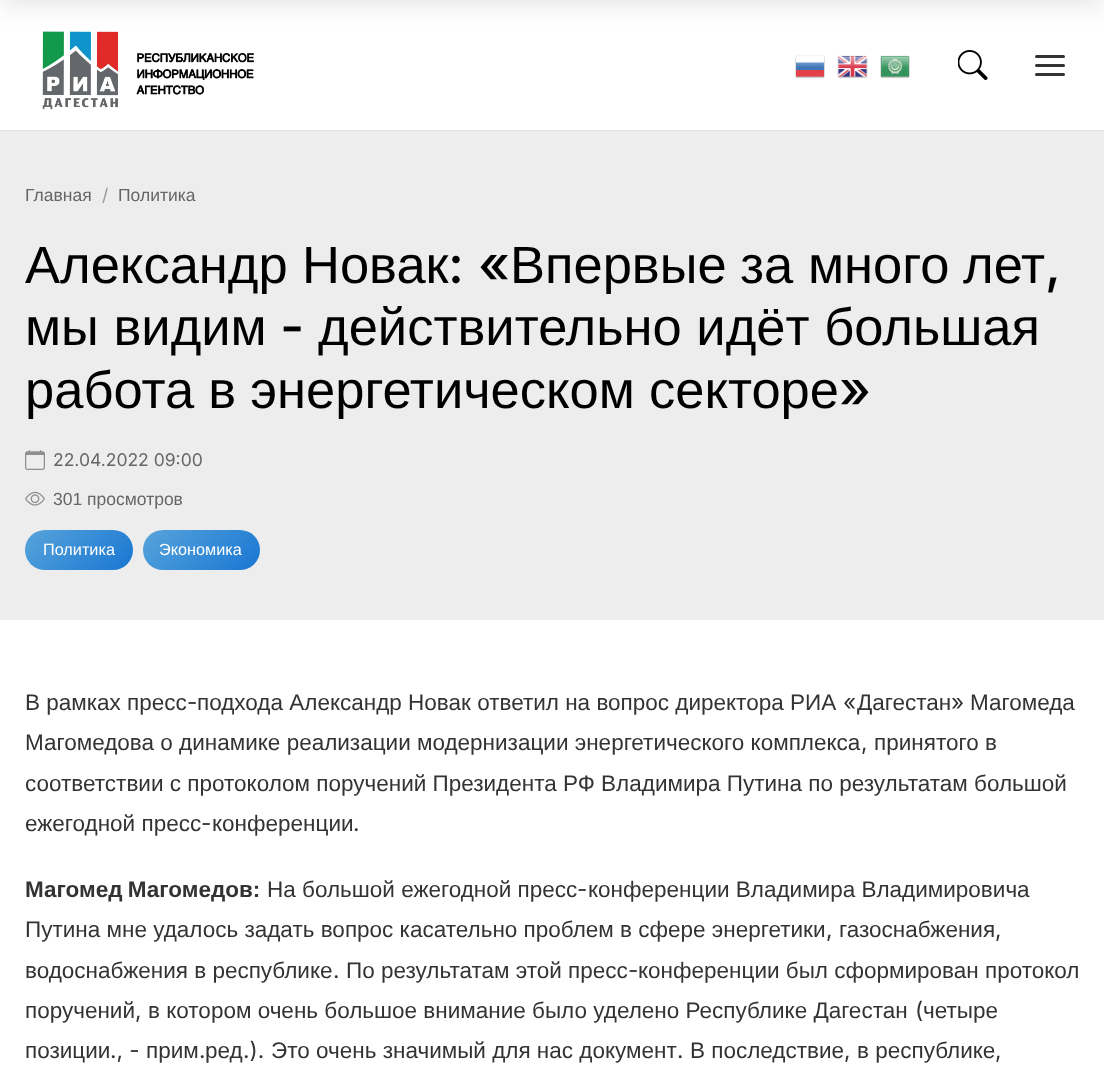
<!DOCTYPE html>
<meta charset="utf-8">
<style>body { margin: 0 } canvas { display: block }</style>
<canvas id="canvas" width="1104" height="1079"></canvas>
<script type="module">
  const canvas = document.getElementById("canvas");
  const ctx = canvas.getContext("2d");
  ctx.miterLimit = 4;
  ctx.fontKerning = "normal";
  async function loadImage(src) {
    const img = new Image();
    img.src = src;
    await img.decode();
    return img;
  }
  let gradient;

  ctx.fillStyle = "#ffffff";
  ctx.fillRect(0, 0, 1104, 1079);
  ctx.drawImage(await loadImage("img1.png"), 42, 31, 212, 79);
  ctx.fillStyle = "rgba(0, 0, 0, 0.1)";
  ctx.filter = "blur(12.5px)";
  ctx.beginPath();
  ctx.rect(0, -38, 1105, 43);
  ctx.fill();
  ctx.filter = "none";
  ctx.fillStyle = "#e0e0e0";
  ctx.fillRect(0, 130, 1104, 1);
  ctx.drawImage(await loadImage("img2.png"), 795, 55, 30, 24);
  ctx.drawImage(await loadImage("img3.png"), 837, 55, 31, 24);
  ctx.drawImage(await loadImage("img4.png"), 880, 55, 30, 24);
  ctx.drawImage(await loadImage("img5.png"), 958, 50, 30, 30);
  ctx.fillStyle = "#333333";
  ctx.beginPath();
  ctx.roundRect(1035, 55, 30, 3, 1.5);
  ctx.fill();
  ctx.beginPath();
  ctx.roundRect(1035, 64, 30, 3, 1.5);
  ctx.fill();
  ctx.beginPath();
  ctx.roundRect(1035, 73, 30, 3, 1.5);
  ctx.fill();
  ctx.fillStyle = "#ededed";
  ctx.fillRect(0, 131, 1104, 489);
  ctx.font = "17.5px Liberation Sans";
  ctx.fillStyle = "#666666";
  ctx.fillText("Главная", 25, 201);
  ctx.font = "17.5px Inter";
  ctx.fillStyle = "#999999";
  ctx.fillText("/", 102, 201);
  ctx.font = "17.5px Liberation Sans";
  ctx.fillStyle = "#666666";
  ctx.fillText("Политика", 118, 201);
  ctx.font = "52.5px Liberation Sans";
  ctx.fillStyle = "#000000";
  ctx.fillText("Александр", 25, 283);
  ctx.fillText("Новак", 302, 283);
  ctx.font = "500 52.5px Inter";
  ctx.fillText(": «", 448, 283);
  ctx.font = "52.5px Liberation Sans";
  ctx.fillText("Впервые", 510, 283);
  ctx.fillText("за", 740, 283);
  ctx.fillText("много", 808, 283);
  ctx.fillText("лет", 963, 283);
  ctx.font = "500 52.5px Inter";
  ctx.fillText(",", 1045, 283);
  ctx.font = "52.5px Liberation Sans";
  ctx.fillText("мы видим", 25, 345);
  ctx.font = "500 52.5px Inter";
  ctx.fillText("-", 280, 345);
  ctx.font = "52.5px Liberation Sans";
  ctx.fillText("действительно идёт большая", 318, 345);
  ctx.wordSpacing = "-0.5px";
  ctx.fillText("работа в энергетическом секторе", 25, 408);
  ctx.wordSpacing = "0px";
  ctx.font = "500 52.5px Inter";
  ctx.fillText("»", 839, 408);
  ctx.drawImage(await loadImage("img6.png"), 25, 450, 20, 20);
  ctx.font = "17.5px Inter";
  ctx.fillStyle = "#666666";
  ctx.fillText("22.04.2022 09:00", 53, 466);
  ctx.drawImage(await loadImage("img7.png"), 25, 491, 20, 15);
  ctx.font = "17.5px Liberation Sans";
  ctx.fillText("301 просмотров", 53, 505);
  gradient = ctx.createLinearGradient(42, 513, 116, 587);
  gradient.addColorStop(0, "#57a4db");
  gradient.addColorStop(1, "#1976d2");
  ctx.fillStyle = gradient;
  ctx.beginPath();
  ctx.roundRect(25, 530, 108, 40, 20);
  ctx.fill();
  ctx.font = "16.25px Liberation Sans";
  ctx.fillStyle = "#ffffff";
  ctx.fillText("Политика", 43, 555);
  gradient = ctx.createLinearGradient(162, 511, 241, 589);
  gradient.addColorStop(0, "#57a4db");
  gradient.addColorStop(1, "#1976d2");
  ctx.fillStyle = gradient;
  ctx.beginPath();
  ctx.roundRect(143, 530, 117, 40, 20);
  ctx.fill();
  ctx.fillStyle = "#ffffff";
  ctx.fillText("Экономика", 159, 555);
  ctx.font = "22.5px Liberation Sans";
  ctx.fillStyle = "#333333";
  ctx.fillText("В рамках пресс", 25, 710);
  ctx.font = "22.5px Inter";
  ctx.fillText("-", 187, 710);
  ctx.font = "22.5px Liberation Sans";
  ctx.fillText("подхода Александр Новак ответил на вопрос директора РИА", 197, 710);
  ctx.font = "22.5px Inter";
  ctx.fillText("«", 843, 710);
  ctx.font = "22.5px Liberation Sans";
  ctx.fillText("Дагестан", 857, 710);
  ctx.font = "22.5px Inter";
  ctx.fillText("»", 951, 710);
  ctx.font = "22.5px Liberation Sans";
  ctx.fillText("Магомеда", 970, 710);
  ctx.fillText("Магомедова о динамике реализации модернизации энергетического комплекса", 25, 750);
  ctx.font = "22.5px Inter";
  ctx.fillText(",", 861, 750);
  ctx.font = "22.5px Liberation Sans";
  ctx.fillText("принятого в", 874, 750);
  ctx.fillText("соответствии с протоколом поручений Президента РФ Владимира Путина по результатам большой", 25, 791);
  ctx.fillText("ежегодной пресс", 25, 831);
  ctx.font = "22.5px Inter";
  ctx.fillText("-", 201, 831);
  ctx.font = "22.5px Liberation Sans";
  ctx.fillText("конференции", 212, 831);
  ctx.font = "22.5px Inter";
  ctx.fillText(".", 353, 831);
  ctx.wordSpacing = "-1px";
  ctx.font = "bold 22.5px Liberation Sans";
  ctx.fillText("Магомед Магомедов:", 25, 897);
  ctx.wordSpacing = "0px";
  ctx.font = "22.5px Liberation Sans";
  ctx.fillText("На большой ежегодной пресс", 267, 897);
  ctx.font = "22.5px Inter";
  ctx.fillText("-", 577, 897);
  ctx.font = "22.5px Liberation Sans";
  ctx.fillText("конференции Владимира Владимировича", 588, 897);
  ctx.fillText("Путина мне удалось задать вопрос касательно проблем в сфере энергетики", 25, 937);
  ctx.font = "22.5px Inter";
  ctx.fillText(",", 826, 937);
  ctx.font = "22.5px Liberation Sans";
  ctx.fillText("газоснабжения", 839, 937);
  ctx.font = "22.5px Inter";
  ctx.fillText(",", 995, 937);
  ctx.font = "22.5px Liberation Sans";
  ctx.fillText("водоснабжения в республике", 25, 978);
  ctx.fillText("По результатам этой пресс", 346, 978);
  ctx.font = "22.5px Inter";
  ctx.fillText("-", 628, 978);
  ctx.font = "22.5px Liberation Sans";
  ctx.fillText("конференции был сформирован протокол", 638, 978);
  ctx.font = "22.5px Inter";
  ctx.fillText(".", 333, 978);
  ctx.font = "22.5px Liberation Sans";
  ctx.fillText("поручений", 25, 1018);
  ctx.font = "22.5px Inter";
  ctx.fillText(",", 135, 1018);
  ctx.font = "22.5px Liberation Sans";
  ctx.fillText("в котором очень большое внимание было уделено Республике Дагестан", 148, 1018);
  ctx.font = "22.5px Inter";
  ctx.fillText("(", 915, 1018);
  ctx.font = "22.5px Liberation Sans";
  ctx.fillText("четыре", 923, 1018);
  ctx.fillText("позиции", 25, 1058);
  ctx.font = "22.5px Inter";
  ctx.fillText("., -", 110, 1058);
  ctx.font = "22.5px Liberation Sans";
  ctx.fillText("прим ред", 146, 1058);
  ctx.font = "22.5px Inter";
  ctx.fillText(".).", 243, 1058);
  ctx.font = "22.5px Liberation Sans";
  ctx.fillText("Это очень значимый для нас документ", 271, 1058);
  ctx.fillText("В последствие", 690, 1058);
  ctx.fillText("в республике", 857, 1058);
  ctx.font = "22.5px Inter";
  ctx.fillText(".", 199, 1058);
  ctx.fillText(".", 677, 1058);
  ctx.fillText(",", 844, 1058);
  ctx.fillText(",", 995, 1058);
</script>
